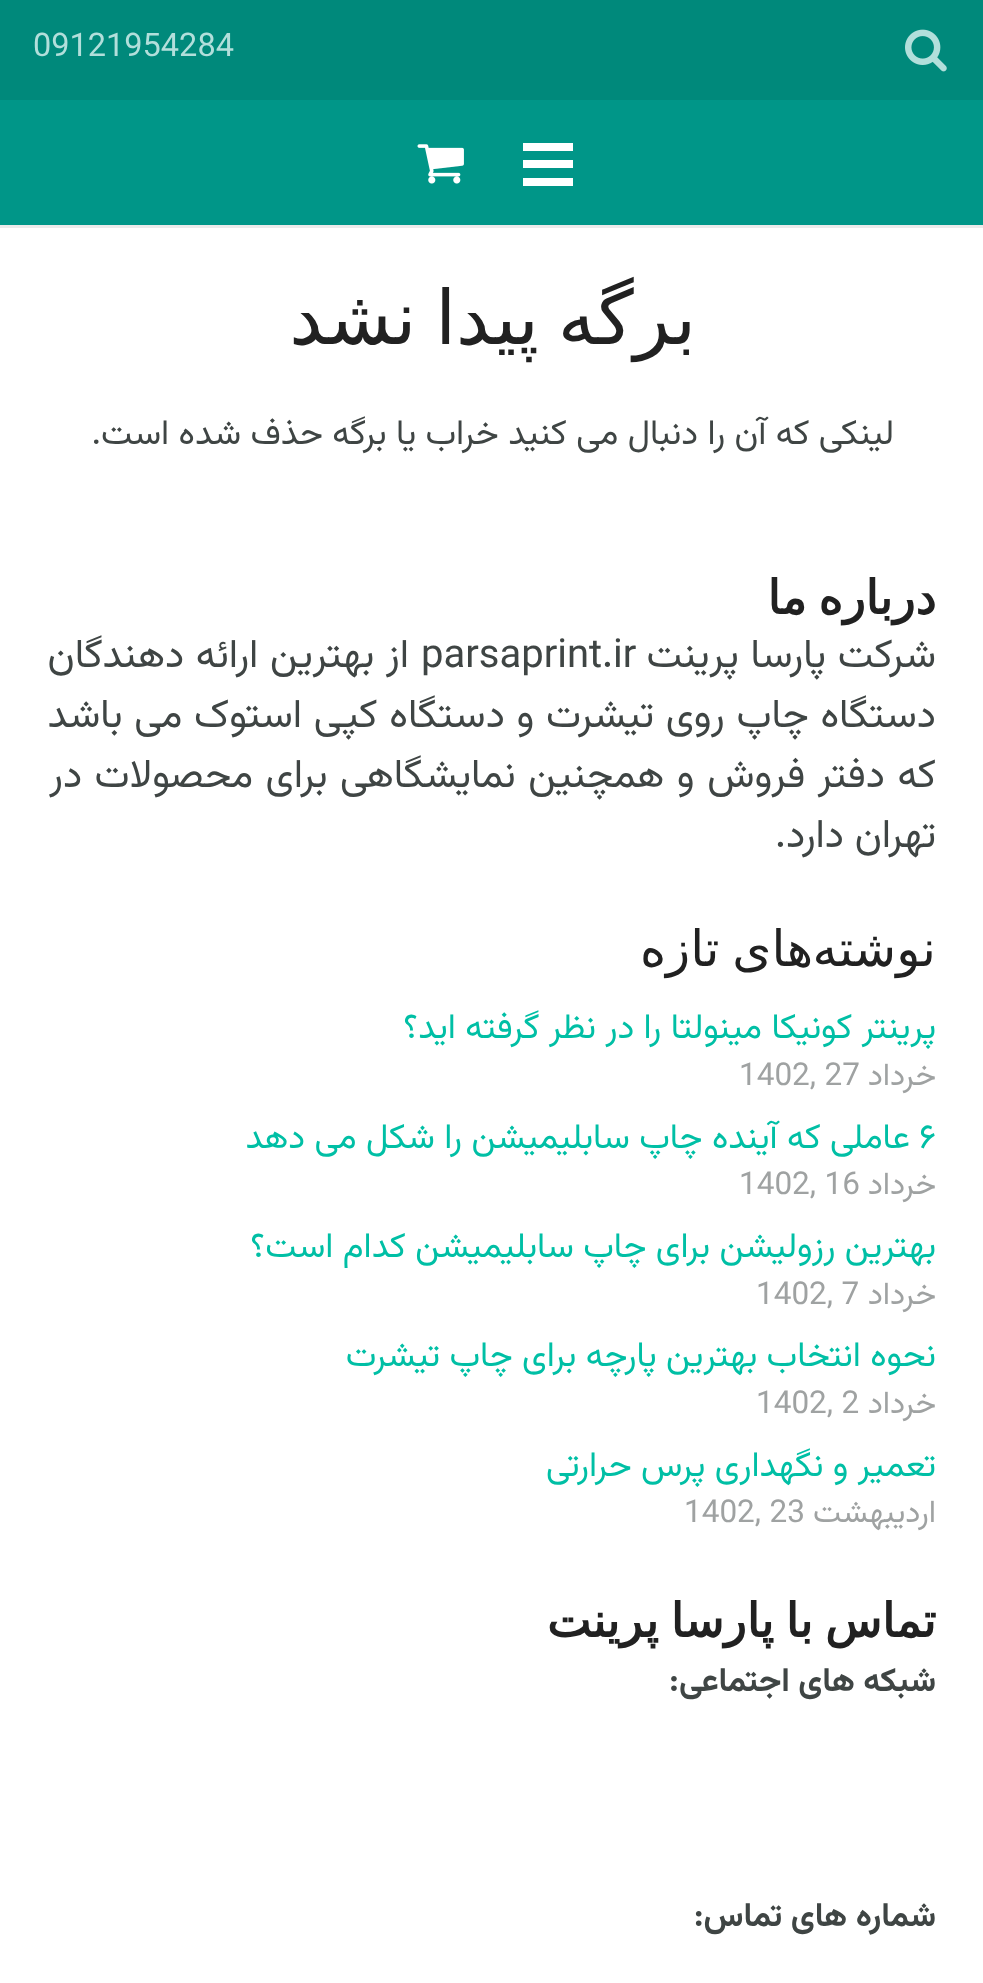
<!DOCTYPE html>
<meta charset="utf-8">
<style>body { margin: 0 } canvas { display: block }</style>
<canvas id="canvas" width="983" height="1983"></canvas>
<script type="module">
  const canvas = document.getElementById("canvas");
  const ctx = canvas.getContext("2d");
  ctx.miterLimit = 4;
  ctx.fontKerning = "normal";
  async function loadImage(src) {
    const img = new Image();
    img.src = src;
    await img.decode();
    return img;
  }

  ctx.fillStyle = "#ffffff";
  ctx.fillRect(0, 0, 983, 1983);
  ctx.fillStyle = "#00897b";
  ctx.fillRect(0, 0, 983, 100);
  ctx.drawImage(await loadImage("img1.png"), 905, 29, 42, 43);
  ctx.font = "32.5px Vazirmatn";
  ctx.fillStyle = "#b2dfdb";
  ctx.fillText("09121954284", 33, 56);
  ctx.fillStyle = "#ebebeb";
  ctx.fillRect(0, 225, 983, 3);
  ctx.fillStyle = "#009688";
  ctx.fillRect(0, 100, 983, 125);
  ctx.fillStyle = "#ffffff";
  ctx.fillRect(523, 160, 50, 8);
  ctx.fillRect(523, 143, 50, 8);
  ctx.fillRect(523, 178, 50, 8);
  ctx.drawImage(await loadImage("img2.png"), 417, 144, 47, 40);
  ctx.wordSpacing = "-5px";
  ctx.direction = "rtl";
  ctx.font = "75px DejaVu Sans";
  ctx.fillStyle = "#212121";
  ctx.fillText("برگه پیدا نشد", 696, 344);
  ctx.wordSpacing = "0px";
  ctx.font = "35px Vazirmatn";
  ctx.fillStyle = "#3f4544";
  ctx.fillText("لینکی که آن را دنبال می کنید خراب یا برگه حذف شده است.", 894, 444);
  ctx.wordSpacing = "-3px";
  ctx.font = "bold 46.75px DejaVu Sans";
  ctx.fillStyle = "#212121";
  ctx.fillText("درباره ما", 936, 614);
  ctx.wordSpacing = "1px";
  ctx.font = "40px Vazirmatn";
  ctx.fillStyle = "#3f4544";
  ctx.fillText("شرکت پارسا پرینت", 936, 667);
  ctx.wordSpacing = "0px";
  ctx.direction = "ltr";
  ctx.fillText("parsaprint.ir", 421, 667);
  ctx.wordSpacing = "1px";
  ctx.direction = "rtl";
  ctx.fillText("از بهترین ارائه دهندگان", 409, 667);
  ctx.fillText("دستگاه چاپ روی تیشرت و دستگاه کپی استوک می باشد", 936, 727);
  ctx.wordSpacing = "1.75px";
  ctx.fillText("که دفتر فروش و همچنین نمایشگاهی برای محصولات در", 936, 787);
  ctx.wordSpacing = "0px";
  ctx.fillText("تهران دارد.", 936, 847);
  ctx.font = "50px DejaVu Sans";
  ctx.fillStyle = "#212121";
  ctx.fillText("نوشته", 936, 966);
  ctx.wordSpacing = "-3px";
  ctx.fillText("های تازه", 813, 966);
  ctx.wordSpacing = "0px";
  ctx.font = "35px Vazirmatn";
  ctx.fillStyle = "#00bfa5";
  ctx.fillText("پرینتر کونیکا مینولتا را در نظر گرفته اید؟", 936, 1038);
  ctx.font = "31.5px Vazirmatn";
  ctx.fillStyle = "#9fa2a2";
  ctx.fillText("خرداد", 936, 1085);
  ctx.direction = "ltr";
  ctx.fillText("1402, 27", 739, 1085);
  ctx.font = "35px Vazirmatn";
  ctx.fillStyle = "#00bfa5";
  ctx.fillText("۶", 919, 1148);
  ctx.direction = "rtl";
  ctx.fillText("عاملی که آینده چاپ سابلیمیشن را شکل می دهد", 910, 1148);
  ctx.font = "31.5px Vazirmatn";
  ctx.fillStyle = "#9fa2a2";
  ctx.fillText("خرداد", 936, 1194);
  ctx.direction = "ltr";
  ctx.fillText("1402, 16", 739, 1194);
  ctx.direction = "rtl";
  ctx.font = "35px Vazirmatn";
  ctx.fillStyle = "#00bfa5";
  ctx.fillText("بهترین رزولیشن برای چاپ سابلیمیشن کدام است؟", 936, 1257);
  ctx.font = "31.5px Vazirmatn";
  ctx.fillStyle = "#9fa2a2";
  ctx.fillText("خرداد", 936, 1304);
  ctx.direction = "ltr";
  ctx.fillText("1402, 7", 756, 1304);
  ctx.direction = "rtl";
  ctx.font = "35px Vazirmatn";
  ctx.fillStyle = "#00bfa5";
  ctx.fillText("نحوه انتخاب بهترین پارچه برای چاپ تیشرت", 936, 1366);
  ctx.font = "31.5px Vazirmatn";
  ctx.fillStyle = "#9fa2a2";
  ctx.fillText("خرداد", 936, 1413);
  ctx.direction = "ltr";
  ctx.fillText("1402, 2", 756, 1413);
  ctx.direction = "rtl";
  ctx.font = "35px Vazirmatn";
  ctx.fillStyle = "#00bfa5";
  ctx.fillText("تعمیر و نگهداری پرس حرارتی", 936, 1476);
  ctx.font = "31.5px Vazirmatn";
  ctx.fillStyle = "#9fa2a2";
  ctx.fillText("اردیبهشت", 936, 1522);
  ctx.direction = "ltr";
  ctx.fillText("1402, 23", 684, 1522);
  ctx.wordSpacing = "-3px";
  ctx.direction = "rtl";
  ctx.font = "bold 46.75px DejaVu Sans";
  ctx.fillStyle = "#212121";
  ctx.fillText("تماس با پارسا پرینت", 936, 1637);
  ctx.wordSpacing = "0px";
  ctx.font = "bold 33.25px Vazirmatn";
  ctx.fillStyle = "#3f4544";
  ctx.fillText("شبکه های اجتماعی:", 936, 1691);
  ctx.fillText("شماره های تماس:", 936, 1926);
</script>
